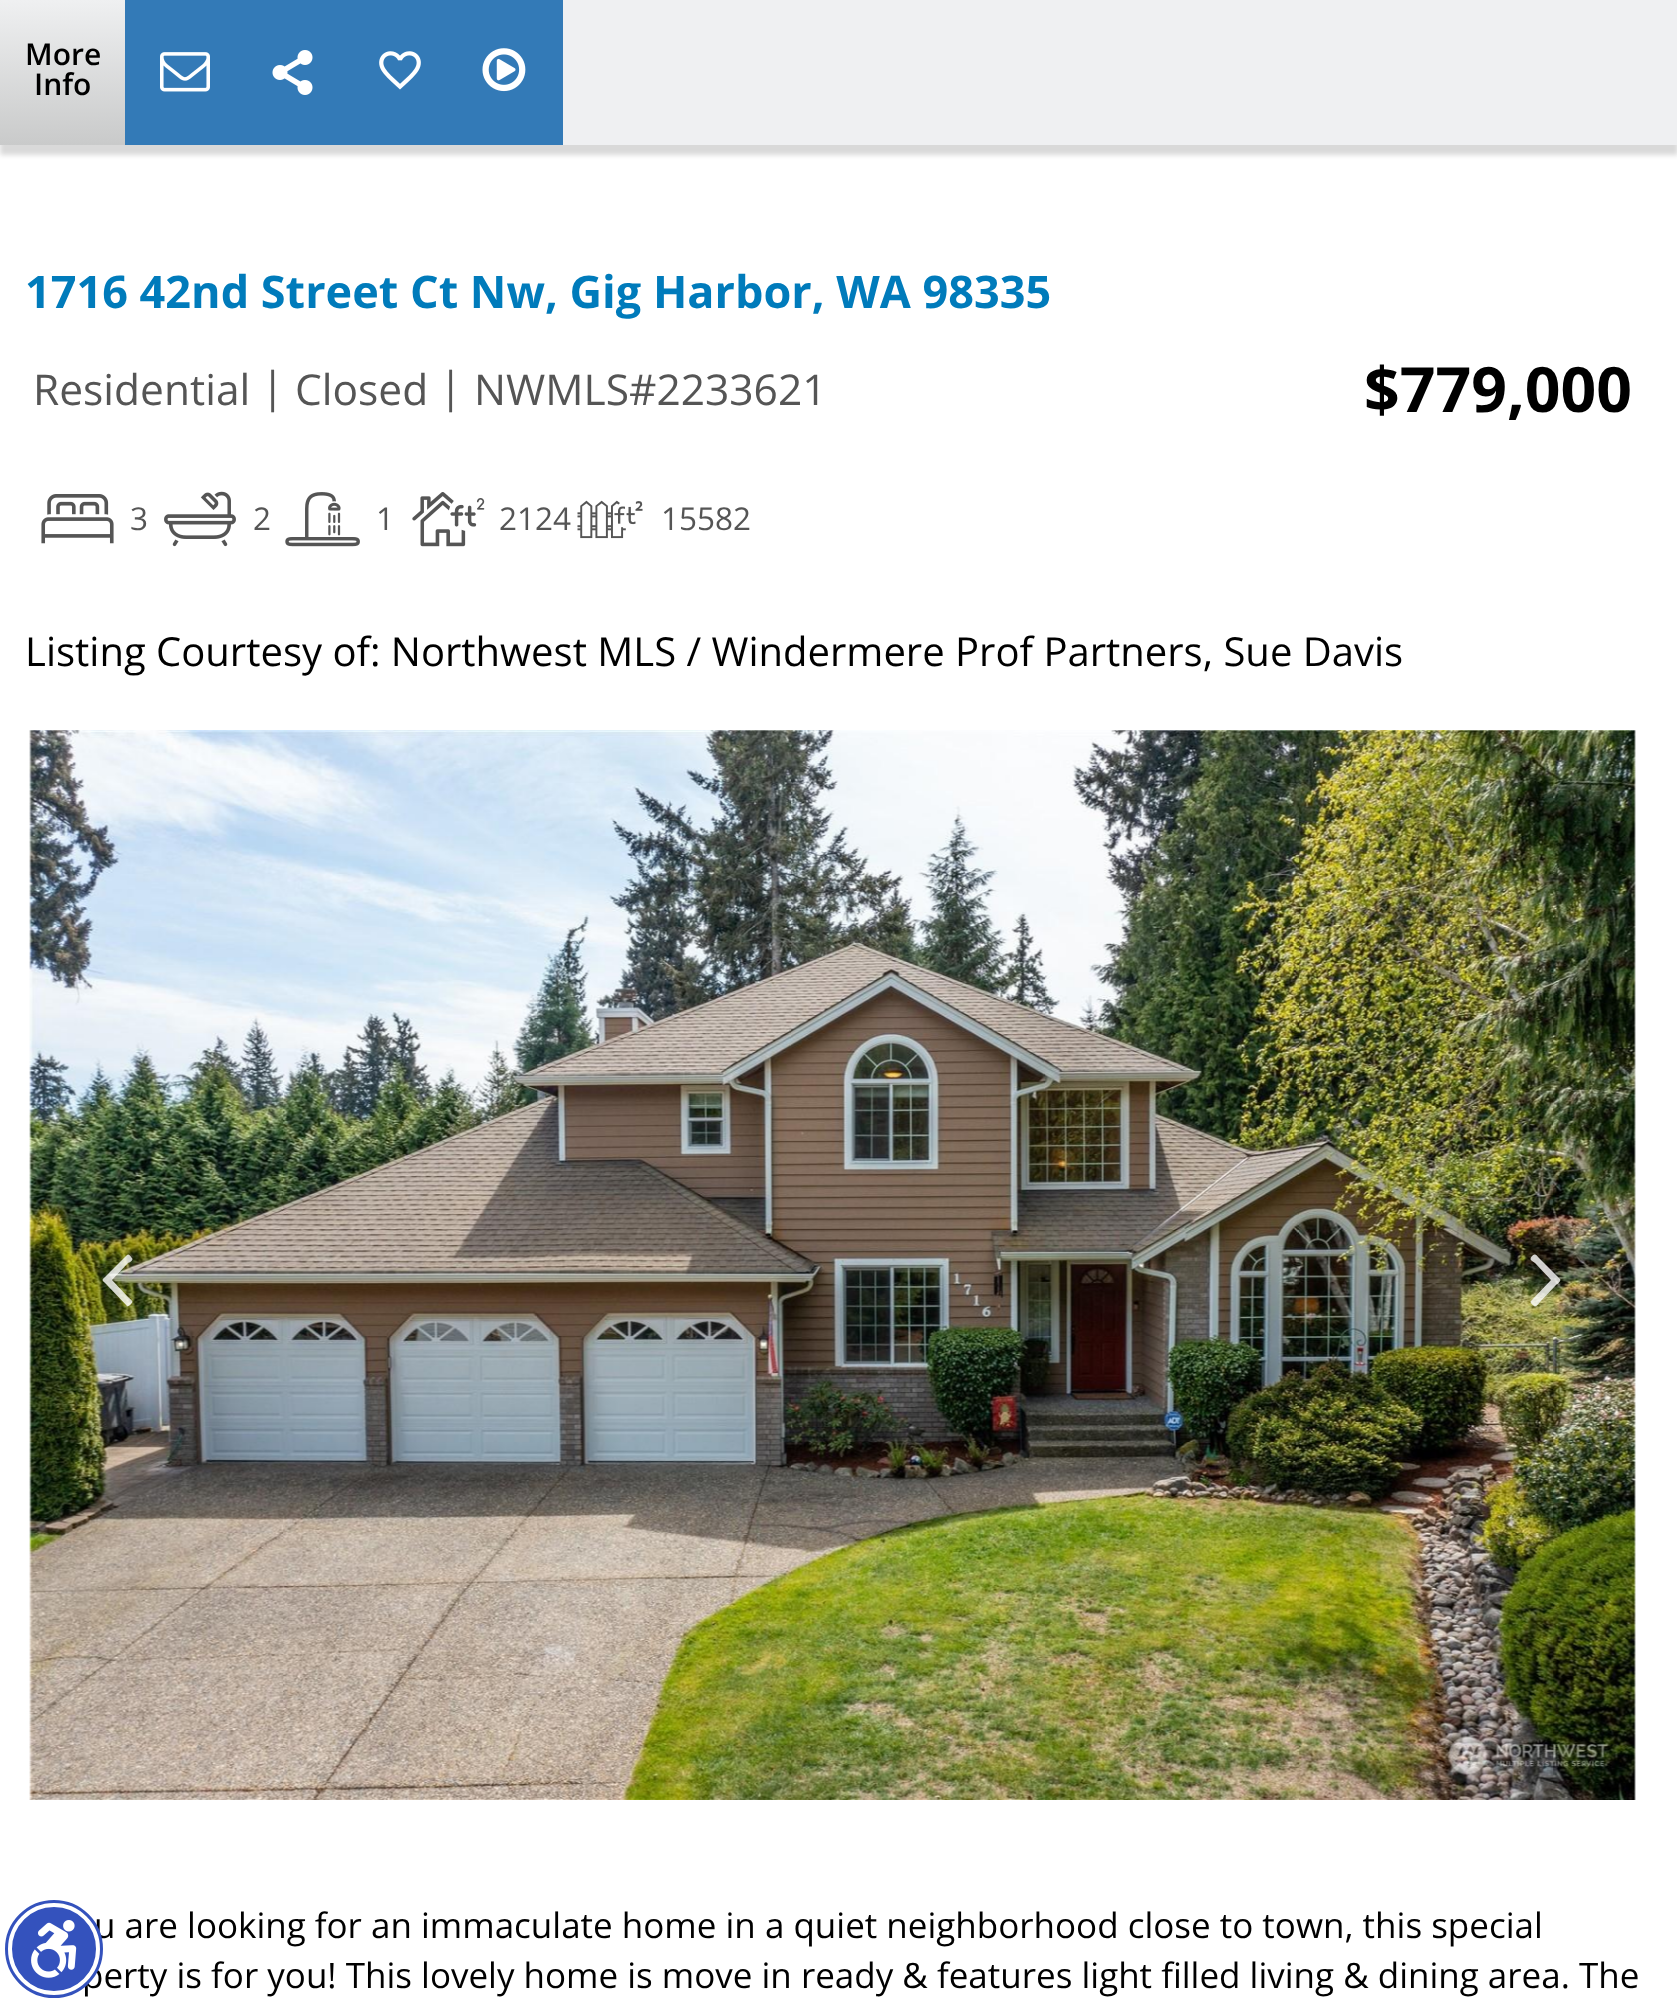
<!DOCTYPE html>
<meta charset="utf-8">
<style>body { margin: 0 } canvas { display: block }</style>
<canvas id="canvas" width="1677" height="2002"></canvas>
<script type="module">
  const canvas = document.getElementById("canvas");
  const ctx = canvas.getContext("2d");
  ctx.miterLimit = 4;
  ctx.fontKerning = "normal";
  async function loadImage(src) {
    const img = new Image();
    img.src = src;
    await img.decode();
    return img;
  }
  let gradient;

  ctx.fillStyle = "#ffffff";
  ctx.fillRect(0, 0, 1677, 2002);
  ctx.fillStyle = "rgba(0, 0, 0, 0.15)";
  ctx.filter = "blur(2.5px)";
  ctx.beginPath();
  ctx.rect(0, 10, 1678, 145);
  ctx.fill();
  ctx.filter = "none";
  ctx.fillStyle = "#eff0f2";
  ctx.fillRect(563, 0, 1114, 145);
  gradient = ctx.createLinearGradient(62, 0, 63, 145);
  gradient.addColorStop(0, "#eff0f1");
  gradient.addColorStop(1, "#c9caca");
  ctx.fillStyle = gradient;
  ctx.fillRect(0, 0, 125, 145);
  ctx.font = "600 30px Open Sans";
  ctx.fillStyle = "#000000";
  ctx.fillText("More", 25, 65);
  ctx.fillText("Info", 34, 95);
  ctx.fillStyle = "#337ab7";
  ctx.fillRect(125, 0, 438, 145);
  ctx.drawImage(await loadImage("img1.png"), 160, 52, 50, 40);
  ctx.drawImage(await loadImage("img2.png"), 272, 50, 41, 45);
  ctx.drawImage(await loadImage("img3.png"), 379, 51, 42, 39);
  ctx.drawImage(await loadImage("img4.png"), 482, 48, 44, 44);
  ctx.font = "bold 45px Open Sans";
  ctx.fillStyle = "#007bbb";
  ctx.fillText("1716 42nd Street Ct Nw, Gig Harbor, WA 98335", 25, 308);
  ctx.font = "42.5px Open Sans";
  ctx.fillStyle = "#555555";
  ctx.fillText("Residential", 33, 405);
  ctx.fillText("|", 261, 402);
  ctx.fillText("Closed", 295, 405);
  ctx.fillText("|", 439, 402);
  ctx.fillText("NWMLS#2233621", 474, 405);
  ctx.font = "bold 62.5px Open Sans";
  ctx.fillStyle = "#000000";
  ctx.fillText("$779,000", 1364, 412);
  ctx.drawImage(await loadImage("img5.png"), 41, 494, 73, 50);
  ctx.font = "31.5px Open Sans";
  ctx.fillStyle = "#555555";
  ctx.fillText("3", 130, 530);
  ctx.drawImage(await loadImage("img6.png"), 164, 491, 72, 56);
  ctx.fillText("2", 253, 530);
  ctx.drawImage(await loadImage("img7.png"), 285, 492, 75, 55);
  ctx.fillText("1", 376, 530);
  ctx.drawImage(await loadImage("img8.png"), 412, 492, 73, 55);
  ctx.fillText("2124", 499, 530);
  ctx.drawImage(await loadImage("img9.png"), 577, 500, 66, 39);
  ctx.fillText("15582", 661, 530);
  ctx.font = "40px Open Sans";
  ctx.fillStyle = "#000000";
  ctx.fillText("Listing Courtesy of: Northwest MLS / Windermere Prof Partners, Sue Davis", 25, 666);
  ctx.drawImage(await loadImage("img10.png"), 29, 730, 1607, 1070);
  ctx.fillStyle = "rgba(255, 255, 255, 0.8)";
  ctx.beginPath();
  ctx.moveTo(132, 1258);
  ctx.bezierCurveTo(134, 1260, 129, 1263, 128, 1263);
  ctx.lineTo(112, 1280);
  ctx.lineTo(128, 1297);
  ctx.bezierCurveTo(132, 1301, 134, 1301, 131, 1304);
  ctx.bezierCurveTo(130, 1305, 128, 1307, 127, 1306);
  ctx.lineTo(107, 1285);
  ctx.bezierCurveTo(101, 1279, 101, 1281, 107, 1275);
  ctx.lineTo(127, 1255);
  ctx.bezierCurveTo(129, 1253, 131, 1257, 132, 1258);
  ctx.closePath();
  ctx.fill();
  ctx.beginPath();
  ctx.moveTo(1560, 1279);
  ctx.bezierCurveTo(1562, 1281, 1556, 1285, 1556, 1285);
  ctx.lineTo(1540, 1302);
  ctx.bezierCurveTo(1540, 1302, 1536, 1308, 1534, 1306);
  ctx.bezierCurveTo(1533, 1305, 1529, 1302, 1531, 1301);
  ctx.lineTo(1551, 1280);
  ctx.lineTo(1535, 1263);
  ctx.bezierCurveTo(1531, 1260, 1529, 1260, 1532, 1256);
  ctx.bezierCurveTo(1536, 1253, 1536, 1255, 1540, 1259);
  ctx.closePath();
  ctx.fill();
  ctx.font = "35px Open Sans";
  ctx.fillStyle = "#000000";
  ctx.fillText("u are looking for an immaculate home in a quiet neighborhood close to town, this special", 94, 1938);
  ctx.fillText("perty is for you! This lovely home is move in ready & features light filled living & dining area. The", 82, 1988);
  ctx.beginPath();
  ctx.arc(54, 1949, 47, 0, Math.PI * 2);
  ctx.strokeStyle = "#3452bd";
  ctx.lineWidth = 4;
  ctx.stroke();
  ctx.fillStyle = "#3452bd";
  ctx.beginPath();
  ctx.arc(54, 1949, 44, 0, Math.PI * 2);
  ctx.fill();
  ctx.strokeStyle = "#ffffff";
  ctx.stroke();
  ctx.drawImage(await loadImage("img11.png"), 31, 1920, 46, 58);
</script>
